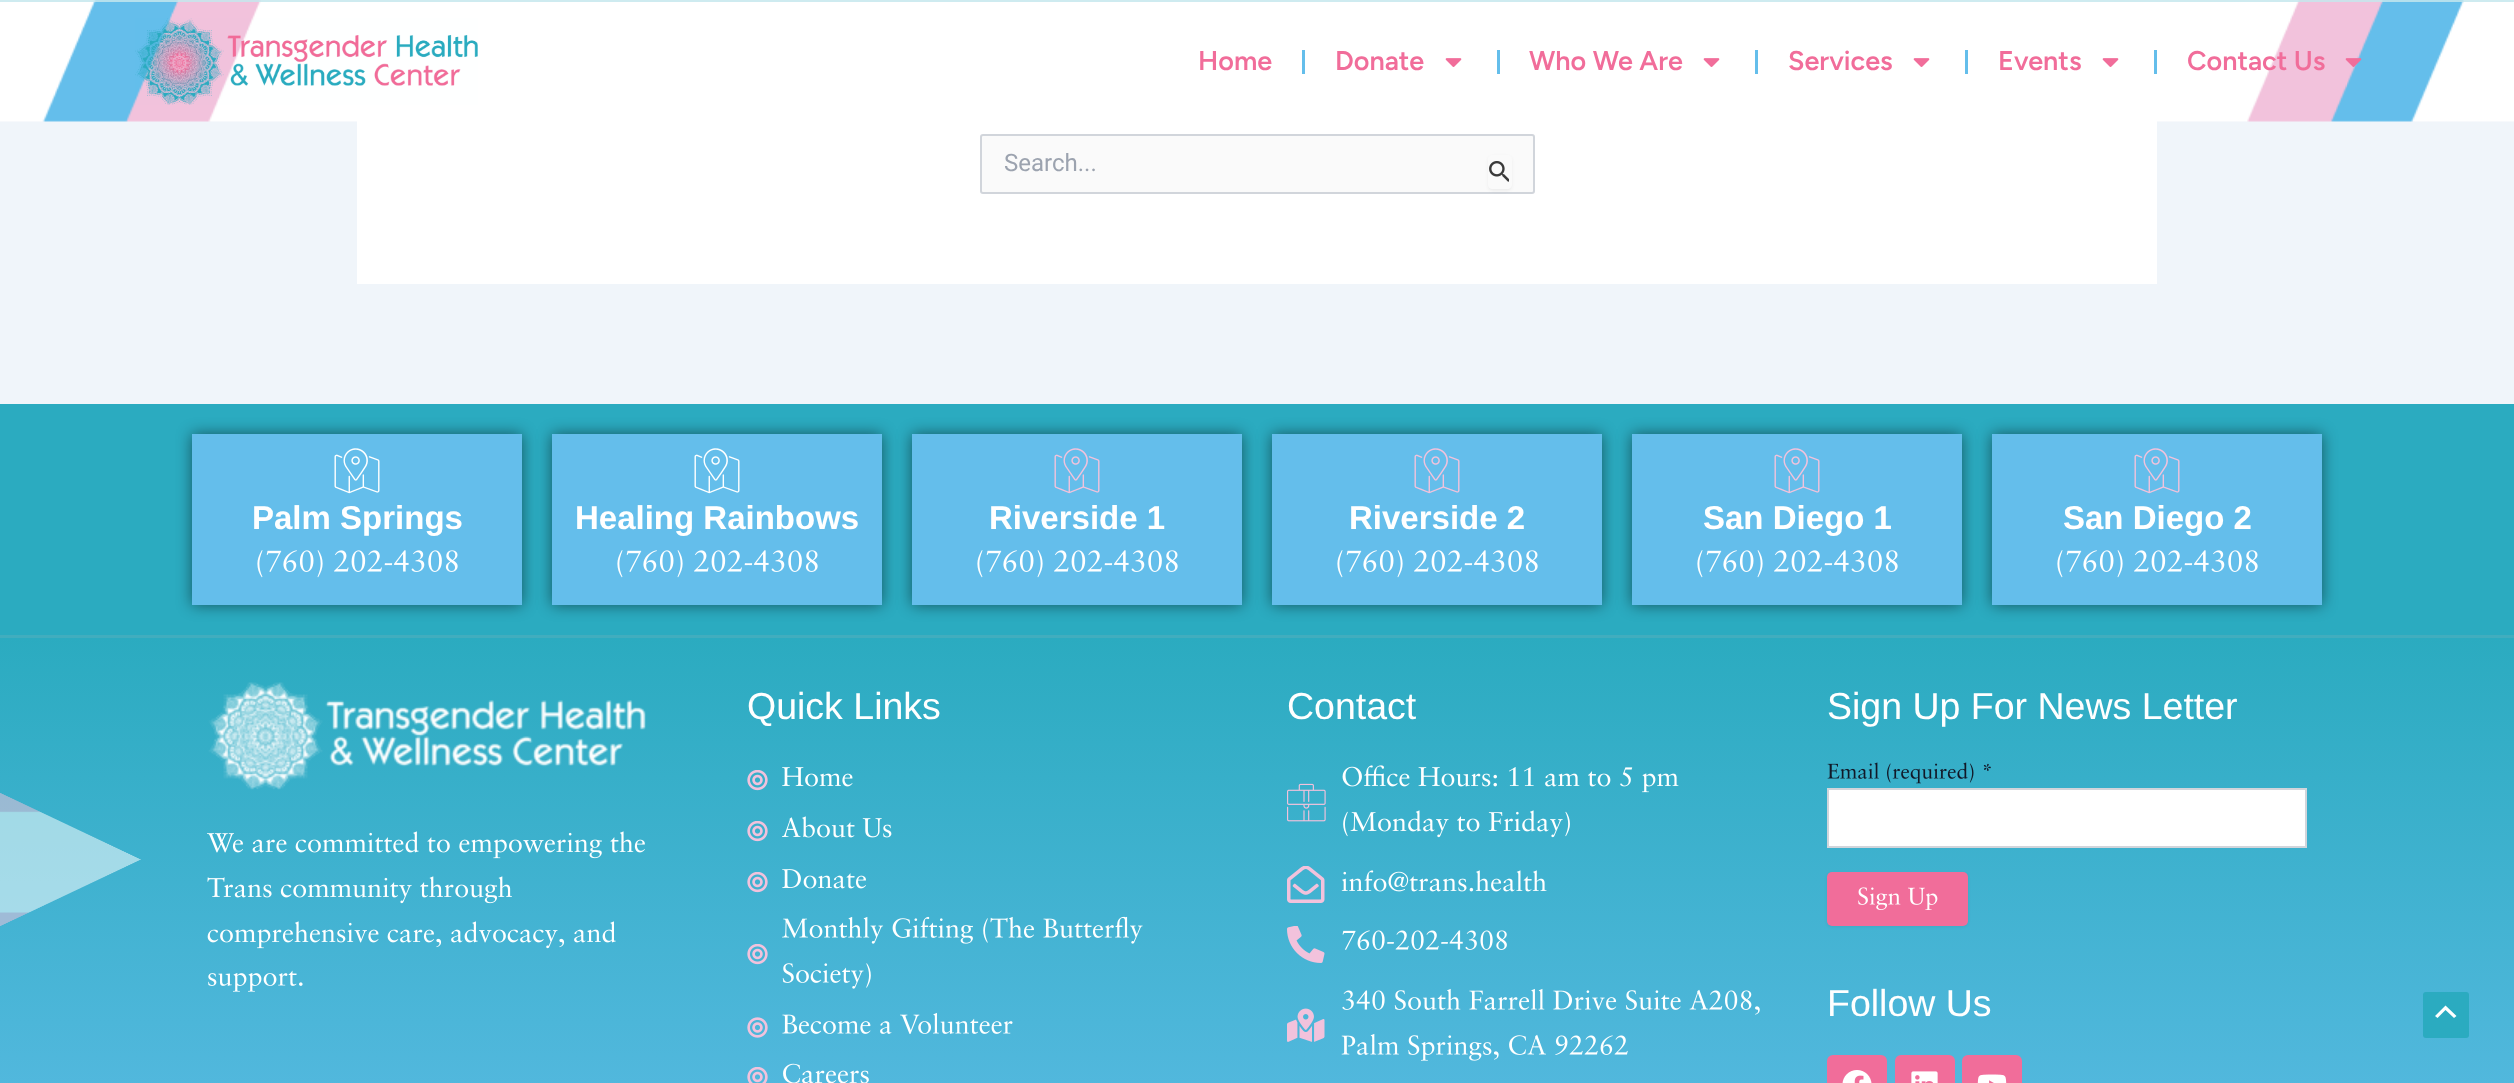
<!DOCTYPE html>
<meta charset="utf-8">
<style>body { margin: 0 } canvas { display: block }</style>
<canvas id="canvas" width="2514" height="1083"></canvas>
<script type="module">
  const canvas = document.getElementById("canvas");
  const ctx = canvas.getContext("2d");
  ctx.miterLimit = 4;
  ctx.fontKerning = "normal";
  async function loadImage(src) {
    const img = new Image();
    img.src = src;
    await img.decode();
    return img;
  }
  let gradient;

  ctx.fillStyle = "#f0f5fa";
  ctx.fillRect(0, 0, 2514, 1083);
  ctx.fillStyle = "#ffffff";
  ctx.fillRect(357, 120, 1800, 164);
  ctx.drawImage(await loadImage("img1.png"), 0, 0, 2514, 122);
  ctx.fillStyle = "rgba(196, 231, 237, 0.83)";
  ctx.fillRect(0, 0, 2514, 2);
  ctx.drawImage(await loadImage("img2.png"), 135, 18, 343, 87);
  ctx.font = "600 27px Figtree";
  ctx.fillStyle = "#f16d9a";
  ctx.fillText("Home", 1198, 70);
  ctx.fillStyle = "#64beeb";
  ctx.fillRect(1302, 50, 3, 24);
  ctx.fillStyle = "#f16d9a";
  ctx.fillText("Donate", 1335, 70);
  ctx.drawImage(await loadImage("img3.png"), 1445, 58, 17, 9);
  ctx.fillStyle = "#64beeb";
  ctx.fillRect(1497, 50, 3, 24);
  ctx.fillStyle = "#f16d9a";
  ctx.fillText("Who We Are", 1529, 70);
  ctx.drawImage(await loadImage("img3.png"), 1703, 58, 17, 9);
  ctx.fillStyle = "#64beeb";
  ctx.fillRect(1755, 50, 3, 24);
  ctx.fillStyle = "#f16d9a";
  ctx.fillText("Services", 1788, 70);
  ctx.drawImage(await loadImage("img3.png"), 1913, 58, 17, 9);
  ctx.fillStyle = "#64beeb";
  ctx.fillRect(1965, 50, 3, 24);
  ctx.fillStyle = "#f16d9a";
  ctx.fillText("Events", 1998, 70);
  ctx.drawImage(await loadImage("img3.png"), 2102, 58, 17, 9);
  ctx.fillStyle = "#64beeb";
  ctx.fillRect(2154, 50, 3, 24);
  ctx.fillStyle = "#f16d9a";
  ctx.fillText("Contact Us", 2187, 70);
  ctx.drawImage(await loadImage("img4.png"), 2345, 58, 17, 9);
  ctx.fillStyle = "#fafafa";
  ctx.beginPath();
  ctx.roundRect(981, 135, 553, 58, 2);
  ctx.fill();
  ctx.strokeStyle = "#d1d5db";
  ctx.lineWidth = 2;
  ctx.stroke();
  ctx.font = "24px Roboto";
  ctx.fillStyle = "#9ca3af";
  ctx.fillText("Search...", 1004, 171);
  ctx.save();
  ctx.beginPath();
  ctx.moveTo(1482, 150);
  ctx.lineTo(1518, 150);
  ctx.lineTo(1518, 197);
  ctx.lineTo(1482, 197);
  ctx.closePath();
  ctx.moveTo(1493, 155);
  ctx.lineTo(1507, 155);
  ctx.bezierCurveTo(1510, 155, 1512, 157, 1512, 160);
  ctx.lineTo(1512, 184);
  ctx.bezierCurveTo(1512, 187, 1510, 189, 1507, 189);
  ctx.lineTo(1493, 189);
  ctx.bezierCurveTo(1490, 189, 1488, 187, 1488, 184);
  ctx.lineTo(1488, 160);
  ctx.bezierCurveTo(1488, 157, 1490, 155, 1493, 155);
  ctx.closePath();
  ctx.clip("evenodd");
  ctx.fillStyle = "rgba(0, 0, 0, 0.05)";
  ctx.filter = "blur(1.5px)";
  ctx.beginPath();
  ctx.roundRect(1488, 156, 24, 35, 5);
  ctx.fill();
  ctx.filter = "none";
  ctx.restore();
  ctx.drawImage(await loadImage("img5.png"), 1489, 161, 20, 21);
  ctx.fillStyle = "#2babc0";
  ctx.fillRect(0, 404, 2514, 231);
  ctx.fillStyle = "rgba(0, 0, 0, 0.5)";
  ctx.filter = "blur(7.5px)";
  ctx.beginPath();
  ctx.rect(192, 434, 330, 171);
  ctx.fill();
  ctx.filter = "none";
  ctx.fillStyle = "#64beeb";
  ctx.fillRect(192, 434, 330, 171);
  ctx.drawImage(await loadImage("img6.png"), 334, 448, 46, 46);
  ctx.font = "bold 33px Liberation Sans";
  ctx.fillStyle = "#ffffff";
  ctx.fillText("Palm Springs", 252, 529);
  ctx.drawImage(await loadImage("img7.png"), 257, 550, 201, 28);
  ctx.fillStyle = "rgba(0, 0, 0, 0.5)";
  ctx.filter = "blur(7.5px)";
  ctx.beginPath();
  ctx.rect(552, 434, 330, 171);
  ctx.fill();
  ctx.filter = "none";
  ctx.fillStyle = "#64beeb";
  ctx.fillRect(552, 434, 330, 171);
  ctx.drawImage(await loadImage("img6.png"), 694, 448, 46, 46);
  ctx.fillStyle = "#ffffff";
  ctx.fillText("Healing Rainbows", 575, 529);
  ctx.drawImage(await loadImage("img7.png"), 617, 550, 201, 28);
  ctx.fillStyle = "rgba(0, 0, 0, 0.5)";
  ctx.filter = "blur(7.5px)";
  ctx.beginPath();
  ctx.rect(912, 434, 330, 171);
  ctx.fill();
  ctx.filter = "none";
  ctx.fillStyle = "#64beeb";
  ctx.fillRect(912, 434, 330, 171);
  ctx.drawImage(await loadImage("img8.png"), 1054, 448, 46, 46);
  ctx.fillStyle = "#ffffff";
  ctx.fillText("Riverside 1", 989, 529);
  ctx.drawImage(await loadImage("img7.png"), 977, 550, 201, 28);
  ctx.fillStyle = "rgba(0, 0, 0, 0.5)";
  ctx.filter = "blur(7.5px)";
  ctx.beginPath();
  ctx.rect(1272, 434, 330, 171);
  ctx.fill();
  ctx.filter = "none";
  ctx.fillStyle = "#64beeb";
  ctx.fillRect(1272, 434, 330, 171);
  ctx.drawImage(await loadImage("img8.png"), 1414, 448, 46, 46);
  ctx.fillStyle = "#ffffff";
  ctx.fillText("Riverside 2", 1349, 529);
  ctx.drawImage(await loadImage("img7.png"), 1337, 550, 201, 28);
  ctx.fillStyle = "rgba(0, 0, 0, 0.5)";
  ctx.filter = "blur(7.5px)";
  ctx.beginPath();
  ctx.rect(1632, 434, 330, 171);
  ctx.fill();
  ctx.filter = "none";
  ctx.fillStyle = "#64beeb";
  ctx.fillRect(1632, 434, 330, 171);
  ctx.drawImage(await loadImage("img8.png"), 1774, 448, 46, 46);
  ctx.fillStyle = "#ffffff";
  ctx.fillText("San Diego 1", 1703, 529);
  ctx.drawImage(await loadImage("img7.png"), 1697, 550, 201, 28);
  ctx.fillStyle = "rgba(0, 0, 0, 0.5)";
  ctx.filter = "blur(7.5px)";
  ctx.beginPath();
  ctx.rect(1992, 434, 330, 171);
  ctx.fill();
  ctx.filter = "none";
  ctx.fillStyle = "#64beeb";
  ctx.fillRect(1992, 434, 330, 171);
  ctx.drawImage(await loadImage("img8.png"), 2134, 448, 46, 46);
  ctx.fillStyle = "#ffffff";
  ctx.fillText("San Diego 2", 2063, 529);
  ctx.drawImage(await loadImage("img7.png"), 2057, 550, 201, 28);
  gradient = ctx.createLinearGradient(1257, 637, 1257, 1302);
  gradient.addColorStop(0, "#2babc0");
  gradient.addColorStop(1, "#64beeb");
  ctx.fillStyle = gradient;
  ctx.fillRect(0, 638, 2514, 445);
  ctx.fillStyle = "#41adbe";
  ctx.fillRect(0, 635, 2514, 3);
  ctx.drawImage(await loadImage("img9.png"), 208, 682, 438, 108);
  ctx.drawImage(await loadImage("img10.png"), 0, 793, 141, 133);
  ctx.drawImage(await loadImage("img11.png"), 207, 831, 438, 28);
  ctx.drawImage(await loadImage("img12.png"), 207, 876, 305, 28);
  ctx.drawImage(await loadImage("img13.png"), 207, 921, 409, 28);
  ctx.drawImage(await loadImage("img14.png"), 208, 970, 95, 22);
  ctx.font = "37.5px Liberation Sans";
  ctx.fillStyle = "#ffffff";
  ctx.fillText("Quick Links", 747, 719);
  ctx.drawImage(await loadImage("img15.png"), 747, 770, 21, 21);
  ctx.drawImage(await loadImage("img16.png"), 782, 767, 71, 20);
  ctx.drawImage(await loadImage("img17.png"), 747, 821, 21, 21);
  ctx.drawImage(await loadImage("img18.png"), 782, 816, 110, 22);
  ctx.drawImage(await loadImage("img19.png"), 747, 872, 21, 21);
  ctx.drawImage(await loadImage("img20.png"), 782, 869, 84, 20);
  ctx.drawImage(await loadImage("img21.png"), 747, 944, 21, 21);
  ctx.drawImage(await loadImage("img22.png"), 782, 916, 361, 28);
  ctx.drawImage(await loadImage("img23.png"), 782, 963, 89, 26);
  ctx.drawImage(await loadImage("img24.png"), 747, 1017, 21, 21);
  ctx.drawImage(await loadImage("img25.png"), 782, 1012, 231, 22);
  ctx.drawImage(await loadImage("img26.png"), 747, 1067, 21, 16);
  ctx.drawImage(await loadImage("img27.png"), 783, 1063, 86, 20);
  ctx.fillText("Contact", 1287, 719);
  ctx.drawImage(await loadImage("img28.png"), 1287, 783, 39, 39);
  ctx.drawImage(await loadImage("img29.png"), 1342, 765, 337, 28);
  ctx.drawImage(await loadImage("img30.png"), 1343, 810, 227, 28);
  ctx.drawImage(await loadImage("img31.png"), 1287, 866, 38, 37);
  ctx.drawImage(await loadImage("img32.png"), 1341, 870, 206, 22);
  ctx.drawImage(await loadImage("img33.png"), 1287, 926, 38, 37);
  ctx.drawImage(await loadImage("img34.png"), 1342, 930, 165, 20);
  ctx.drawImage(await loadImage("img35.png"), 1287, 1008, 38, 34);
  ctx.drawImage(await loadImage("img36.png"), 1342, 988, 418, 27);
  ctx.drawImage(await loadImage("img37.png"), 1341, 1033, 287, 28);
  ctx.fillText("Sign Up For News Letter", 1827, 719);
  ctx.drawImage(await loadImage("img38.png"), 1827, 762, 147, 22);
  ctx.drawImage(await loadImage("img39.png"), 1983, 763, 8, 8);
  ctx.beginPath();
  ctx.rect(1828, 789, 478, 58);
  ctx.fill();
  ctx.stroke();
  ctx.fillStyle = "rgba(0, 0, 0, 0.05)";
  ctx.filter = "blur(1.5px)";
  ctx.beginPath();
  ctx.roundRect(1827, 873, 141, 54, 5);
  ctx.fill();
  ctx.filter = "none";
  ctx.fillStyle = "#f16d9a";
  ctx.beginPath();
  ctx.roundRect(1827, 872, 141, 54, 5);
  ctx.fill();
  ctx.drawImage(await loadImage("img40.png"), 1858, 887, 80, 23);
  ctx.fillStyle = "#ffffff";
  ctx.fillText("Follow Us", 1827, 1016);
  ctx.fillStyle = "#f16d9a";
  ctx.beginPath();
  ctx.roundRect(1827, 1055, 60, 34, 6);
  ctx.fill();
  ctx.drawImage(await loadImage("img41.png"), 1842, 1070, 30, 13);
  ctx.beginPath();
  ctx.roundRect(1895, 1055, 60, 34, 6);
  ctx.fill();
  ctx.drawImage(await loadImage("img42.png"), 1911, 1071, 27, 12);
  ctx.beginPath();
  ctx.roundRect(1962, 1055, 60, 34, 6);
  ctx.fill();
  ctx.drawImage(await loadImage("img43.png"), 1977, 1074, 30, 9);
  ctx.fillStyle = "#2babc0";
  ctx.beginPath();
  ctx.roundRect(2423, 992, 46, 46, 3);
  ctx.fill();
  ctx.fillStyle = "#ffffff";
  ctx.beginPath();
  ctx.moveTo(2456.5, 1016);
  ctx.lineTo(2445.5, 1005.5);
  ctx.lineTo(2435, 1016);
  ctx.lineTo(2437.5, 1018);
  ctx.lineTo(2445.5, 1010);
  ctx.lineTo(2454, 1018);
  ctx.closePath();
  ctx.fill();
</script>
